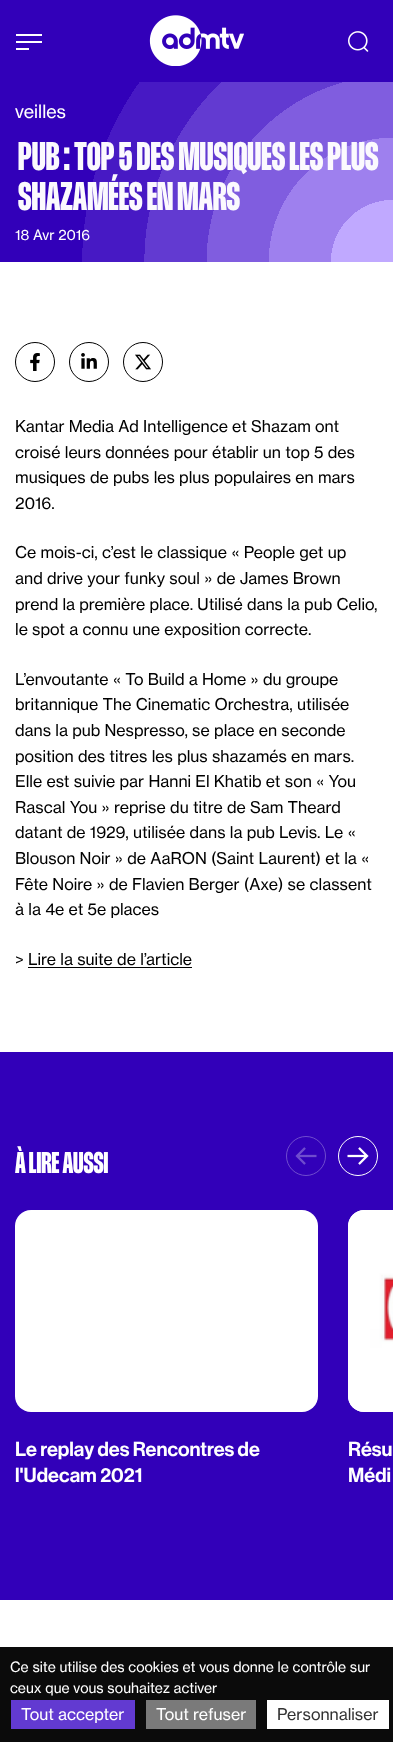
<!DOCTYPE html>
<meta charset="utf-8">
<style>body { margin: 0 } canvas { display: block }</style>
<canvas id="canvas" width="393" height="1742"></canvas>
<script type="module">
  const canvas = document.getElementById("canvas");
  const ctx = canvas.getContext("2d");
  ctx.miterLimit = 4;
  ctx.fontKerning = "normal";
  async function loadImage(src) {
    const img = new Image();
    img.src = src;
    await img.decode();
    return img;
  }
  let gradient;

  ctx.fillStyle = "#ffffff";
  ctx.fillRect(0, 0, 393, 1742);
  ctx.fillStyle = "#3200b9";
  ctx.fillRect(0, 0, 393, 82);
  ctx.drawImage(await loadImage("img1.png"), 149, 15, 95, 51);
  ctx.drawImage(await loadImage("img2.png"), 348, 31, 21, 21);
  ctx.fillStyle = "#ffffff";
  ctx.fillRect(16, 41, 26, 2);
  ctx.fillRect(16, 34, 26, 2);
  ctx.fillRect(16, 48, 13, 2);
  ctx.fillStyle = "#3200b9";
  ctx.fillRect(0, 82, 79, 180);
  gradient = ctx.createRadialGradient(393, 262, 0, 393, 262, 444);
  gradient.addColorStop(0.14, "#c0a9ff");
  gradient.addColorStop(0.14, "#9e80ee");
  gradient.addColorStop(0.28, "#9e80ee");
  gradient.addColorStop(0.28, "#805ddf");
  gradient.addColorStop(0.42, "#805ddf");
  gradient.addColorStop(0.42, "#623ad1");
  gradient.addColorStop(0.56, "#623ad1");
  gradient.addColorStop(0.56, "#4719c4");
  gradient.addColorStop(0.7, "#4719c4");
  gradient.addColorStop(0.7, "#3200b9");
  ctx.fillStyle = gradient;
  ctx.fillRect(79, 82, 314, 180);
  ctx.font = "18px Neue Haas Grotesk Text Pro";
  ctx.fillStyle = "#ffffff";
  ctx.fillText("veilles", 15, 118);
  ctx.font = "bold 40px Lemon";
  ctx.fillStyle = "#fbf9fe";
  ctx.fillText("PUB : TOP 5 DES MUSIQUES LES PLUS", 18, 170);
  ctx.fillText("SHAZAMÉES EN MARS", 18, 210);
  ctx.font = "14px Neue Haas Grotesk Text Pro";
  ctx.fillStyle = "#ffffff";
  ctx.fillText("18 Avr 2016", 15, 240);
  ctx.beginPath();
  ctx.arc(35, 362, 19.5, 0, Math.PI * 2);
  ctx.strokeStyle = "#000000";
  ctx.stroke();
  ctx.drawImage(await loadImage("img3.png"), 30, 353, 10, 18);
  ctx.beginPath();
  ctx.arc(89, 362, 19.5, 0, Math.PI * 2);
  ctx.stroke();
  ctx.drawImage(await loadImage("img4.png"), 81, 353, 16, 16);
  ctx.beginPath();
  ctx.arc(143, 362, 19.5, 0, Math.PI * 2);
  ctx.stroke();
  ctx.drawImage(await loadImage("img5.png"), 135, 354, 16, 16);
  ctx.font = "16px Neue Haas Grotesk Text Pro";
  ctx.fillStyle = "#000000";
  ctx.fillText("Kantar Media Ad Intelligence et Shazam ont", 15, 432);
  ctx.fillText("croisé leurs données pour établir un top 5 des", 15, 458);
  ctx.fillText("musiques de pubs les plus populaires en mars", 15, 483);
  ctx.fillText("2016.", 15, 509);
  ctx.fillText("Ce mois-ci, c’est le classique « People get up", 15, 558);
  ctx.fillText("and drive your funky soul » de James Brown", 15, 584);
  ctx.fillText("prend la première place. Utilisé dans la pub Celio,", 15, 610);
  ctx.fillText("le spot a connu une exposition correcte.", 15, 635);
  ctx.fillText("L’envoutante « To Build a Home » du groupe", 15, 685);
  ctx.fillText("britannique The Cinematic Orchestra, utilisée", 15, 710);
  ctx.fillText("dans la pub Nespresso, se place en seconde", 15, 736);
  ctx.fillText("position des titres les plus shazamés en mars.", 15, 762);
  ctx.fillText("Elle est suivie par Hanni El Khatib et son « You", 15, 787);
  ctx.fillText("Rascal You » reprise du titre de Sam Theard", 15, 813);
  ctx.fillText("datant de 1929, utilisée dans la pub Levis. Le «", 15, 838);
  ctx.fillText("Blouson Noir » de AaRON (Saint Laurent) et la «", 15, 864);
  ctx.fillText("Fête Noire » de Flavien Berger (Axe) se classent", 15, 890);
  ctx.fillText("à la 4e et 5e places", 15, 915);
  ctx.fillText(">", 15, 965);
  ctx.fillText("Lire la suite de l’article", 28, 965);
  ctx.fillRect(28, 967, 164, 1);
  ctx.fillStyle = "#3200b9";
  ctx.fillRect(0, 1052, 393, 548);
  ctx.font = "bold 30px Lemon";
  ctx.fillStyle = "#ffffff";
  ctx.fillText("À LIRE AUSSI", 15, 1173);
  ctx.beginPath();
  ctx.arc(306, 1156, 19.5, 0, Math.PI * 2);
  ctx.strokeStyle = "#704dce";
  ctx.stroke();
  ctx.drawImage(await loadImage("img6.png"), 295, 1147, 22, 18);
  ctx.beginPath();
  ctx.arc(358, 1156, 19.5, 0, Math.PI * 2);
  ctx.strokeStyle = "#ffffff";
  ctx.stroke();
  ctx.drawImage(await loadImage("img7.png"), 347, 1147, 22, 18);
  ctx.beginPath();
  ctx.roundRect(15, 1210, 303, 202, 16);
  ctx.fill();
  ctx.font = "500 20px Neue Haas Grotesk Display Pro";
  ctx.fillText("Le replay des Rencontres de", 15, 1456);
  ctx.fillText("l'Udecam 2021", 15, 1482);
  ctx.beginPath();
  ctx.roundRect(348, 1210, 45, 202, [16, 0, 0, 16]);
  ctx.fill();
  ctx.drawImage(await loadImage("img8.png"), 348, 1210, 45, 202);
  ctx.fillText("Résu", 348, 1456);
  ctx.fillText("Médi", 348, 1482);
  ctx.fillStyle = "#0b0b0b";
  ctx.fillRect(0, 1647, 393, 95);
  ctx.font = "14px Neue Haas Grotesk Text Pro";
  ctx.fillStyle = "#ffffff";
  ctx.fillText("Ce site utilise des cookies et vous donne le contrôle sur", 10, 1672);
  ctx.fillText("ceux que vous souhaitez activer", 10, 1693);
  ctx.fillStyle = "#623ad1";
  ctx.fillRect(11, 1700, 124, 29);
  ctx.font = "16px Neue Haas Grotesk Text Pro";
  ctx.fillStyle = "#ffffff";
  ctx.fillText("Tout accepter", 21, 1720);
  ctx.fillStyle = "#7a7a7a";
  ctx.fillRect(146, 1700, 110, 29);
  ctx.fillStyle = "#ffffff";
  ctx.fillText("Tout refuser", 156, 1720);
  ctx.fillRect(267, 1700, 122, 29);
  ctx.fillStyle = "#333333";
  ctx.fillText("Personnaliser", 277, 1720);
</script>
